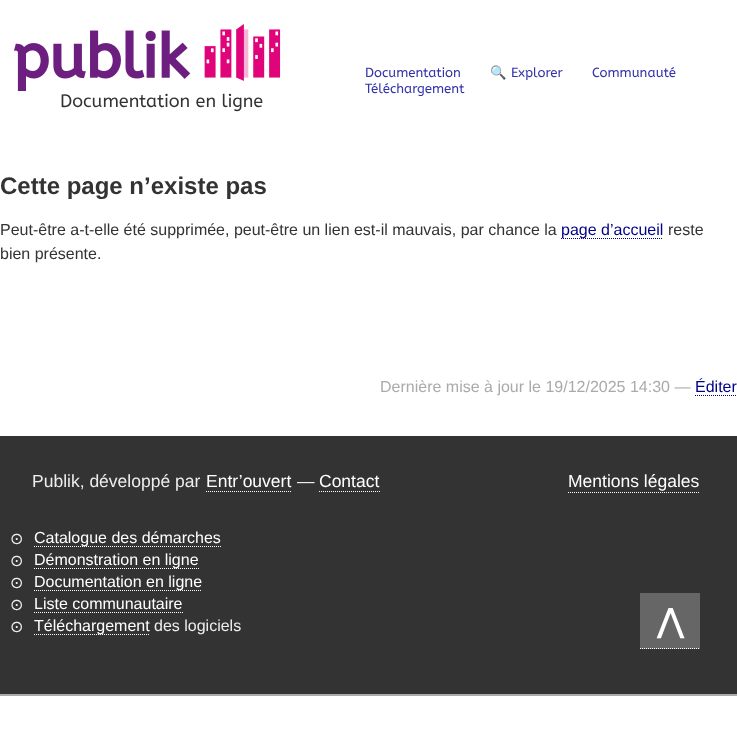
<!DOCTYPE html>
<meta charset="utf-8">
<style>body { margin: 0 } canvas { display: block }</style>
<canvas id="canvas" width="737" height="738"></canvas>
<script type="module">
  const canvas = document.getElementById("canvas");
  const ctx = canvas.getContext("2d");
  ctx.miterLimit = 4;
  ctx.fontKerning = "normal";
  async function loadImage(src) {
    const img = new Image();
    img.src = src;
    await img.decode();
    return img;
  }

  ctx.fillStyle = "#ffffff";
  ctx.fillRect(0, 0, 737, 738);
  ctx.font = "13.25px ABeeZee";
  ctx.fillStyle = "#3333aa";
  ctx.fillText("Documentation", 365, 77);
  ctx.font = "13.25px Noto Color Emoji";
  ctx.fillText("🔍", 490, 77);
  ctx.font = "13.25px ABeeZee";
  ctx.fillText("Explorer", 511, 77);
  ctx.fillText("Communauté", 592, 77);
  ctx.fillText("Téléchargement", 365, 93);
  ctx.drawImage(await loadImage("img1.png"), 14, 24, 267, 67);
  ctx.font = "18px ABeeZee";
  ctx.fillStyle = "#333333";
  ctx.fillText("Documentation en ligne", 60, 107);
  ctx.font = "bold 24px Liberation Sans";
  ctx.fillText("Cette page n’existe pas", 0, 194);
  ctx.font = "16px Liberation Sans";
  ctx.fillText("Peut-être a-t-elle été supprimée, peut-être un lien est-il mauvais, par chance la", 0, 235);
  ctx.beginPath();
  ctx.moveTo(561, 238.5);
  ctx.lineTo(663, 238.5);
  ctx.strokeStyle = "#000088";
  ctx.setLineDash([1, 1]);
  ctx.stroke();
  ctx.fillStyle = "#000088";
  ctx.fillText("page d’accueil", 561, 235);
  ctx.fillStyle = "#333333";
  ctx.fillText("reste", 668, 235);
  ctx.fillText("bien présente.", 0, 259);
  ctx.fillStyle = "#aaaaaa";
  ctx.fillText("Dernière mise à jour le 19/12/2025 14:30 —", 380, 392);
  ctx.fillStyle = "#000088";
  ctx.fillText("Éditer", 695, 392);
  ctx.beginPath();
  ctx.moveTo(695, 395.5);
  ctx.lineTo(737, 395.5);
  ctx.stroke();
  ctx.fillStyle = "#333333";
  ctx.fillRect(0, 436, 737, 258);
  ctx.fillStyle = "#aaaaaa";
  ctx.fillRect(0, 694, 737, 2);
  ctx.font = "17.5px Liberation Sans";
  ctx.fillStyle = "#eeeeee";
  ctx.fillText("Publik, développé par", 32, 487);
  ctx.fillStyle = "#ffffff";
  ctx.fillText("Entr’ouvert", 206, 487);
  ctx.beginPath();
  ctx.moveTo(206, 491.5);
  ctx.lineTo(292, 491.5);
  ctx.strokeStyle = "#ffffff";
  ctx.stroke();
  ctx.fillStyle = "#eeeeee";
  ctx.fillText("—", 297, 487);
  ctx.fillStyle = "#ffffff";
  ctx.fillText("Contact", 319, 487);
  ctx.beginPath();
  ctx.moveTo(319, 491.5);
  ctx.lineTo(380, 491.5);
  ctx.stroke();
  ctx.beginPath();
  ctx.moveTo(568, 492.5);
  ctx.lineTo(700, 492.5);
  ctx.stroke();
  ctx.fillText("Mentions légales", 568, 487);
  ctx.font = "16px DejaVu Sans";
  ctx.fillStyle = "#eeeeee";
  ctx.fillText("⊙", 10, 544);
  ctx.beginPath();
  ctx.moveTo(34, 546.5);
  ctx.lineTo(221, 546.5);
  ctx.stroke();
  ctx.font = "16px Liberation Sans";
  ctx.fillStyle = "#ffffff";
  ctx.fillText("Catalogue des démarches", 34, 543);
  ctx.font = "16px DejaVu Sans";
  ctx.fillStyle = "#eeeeee";
  ctx.fillText("⊙", 10, 566);
  ctx.beginPath();
  ctx.moveTo(34, 568.5);
  ctx.lineTo(199, 568.5);
  ctx.stroke();
  ctx.font = "16px Liberation Sans";
  ctx.fillStyle = "#ffffff";
  ctx.fillText("Démonstration en ligne", 34, 565);
  ctx.font = "16px DejaVu Sans";
  ctx.fillStyle = "#eeeeee";
  ctx.fillText("⊙", 10, 588);
  ctx.beginPath();
  ctx.moveTo(34, 590.5);
  ctx.lineTo(202, 590.5);
  ctx.stroke();
  ctx.font = "16px Liberation Sans";
  ctx.fillStyle = "#ffffff";
  ctx.fillText("Documentation en ligne", 34, 587);
  ctx.font = "16px DejaVu Sans";
  ctx.fillStyle = "#eeeeee";
  ctx.fillText("⊙", 10, 610);
  ctx.font = "16px Liberation Sans";
  ctx.fillStyle = "#ffffff";
  ctx.fillText("Liste communautaire", 34, 609);
  ctx.beginPath();
  ctx.moveTo(34, 612.5);
  ctx.lineTo(183, 612.5);
  ctx.stroke();
  ctx.font = "16px DejaVu Sans";
  ctx.fillStyle = "#eeeeee";
  ctx.fillText("⊙", 10, 632);
  ctx.beginPath();
  ctx.moveTo(34, 634.5);
  ctx.lineTo(150, 634.5);
  ctx.stroke();
  ctx.font = "16px Liberation Sans";
  ctx.fillStyle = "#ffffff";
  ctx.fillText("Téléchargement", 34, 631);
  ctx.fillStyle = "#eeeeee";
  ctx.fillText("des logiciels", 154, 631);
  ctx.fillStyle = "#666666";
  ctx.fillRect(640, 593, 60, 56);
  ctx.beginPath();
  ctx.moveTo(640, 648.5);
  ctx.lineTo(700, 648.5);
  ctx.stroke();
  ctx.font = "bold 32px DejaVu Sans";
  ctx.fillStyle = "#ffffff";
  ctx.fillText("⋀", 657, 632);
</script>
